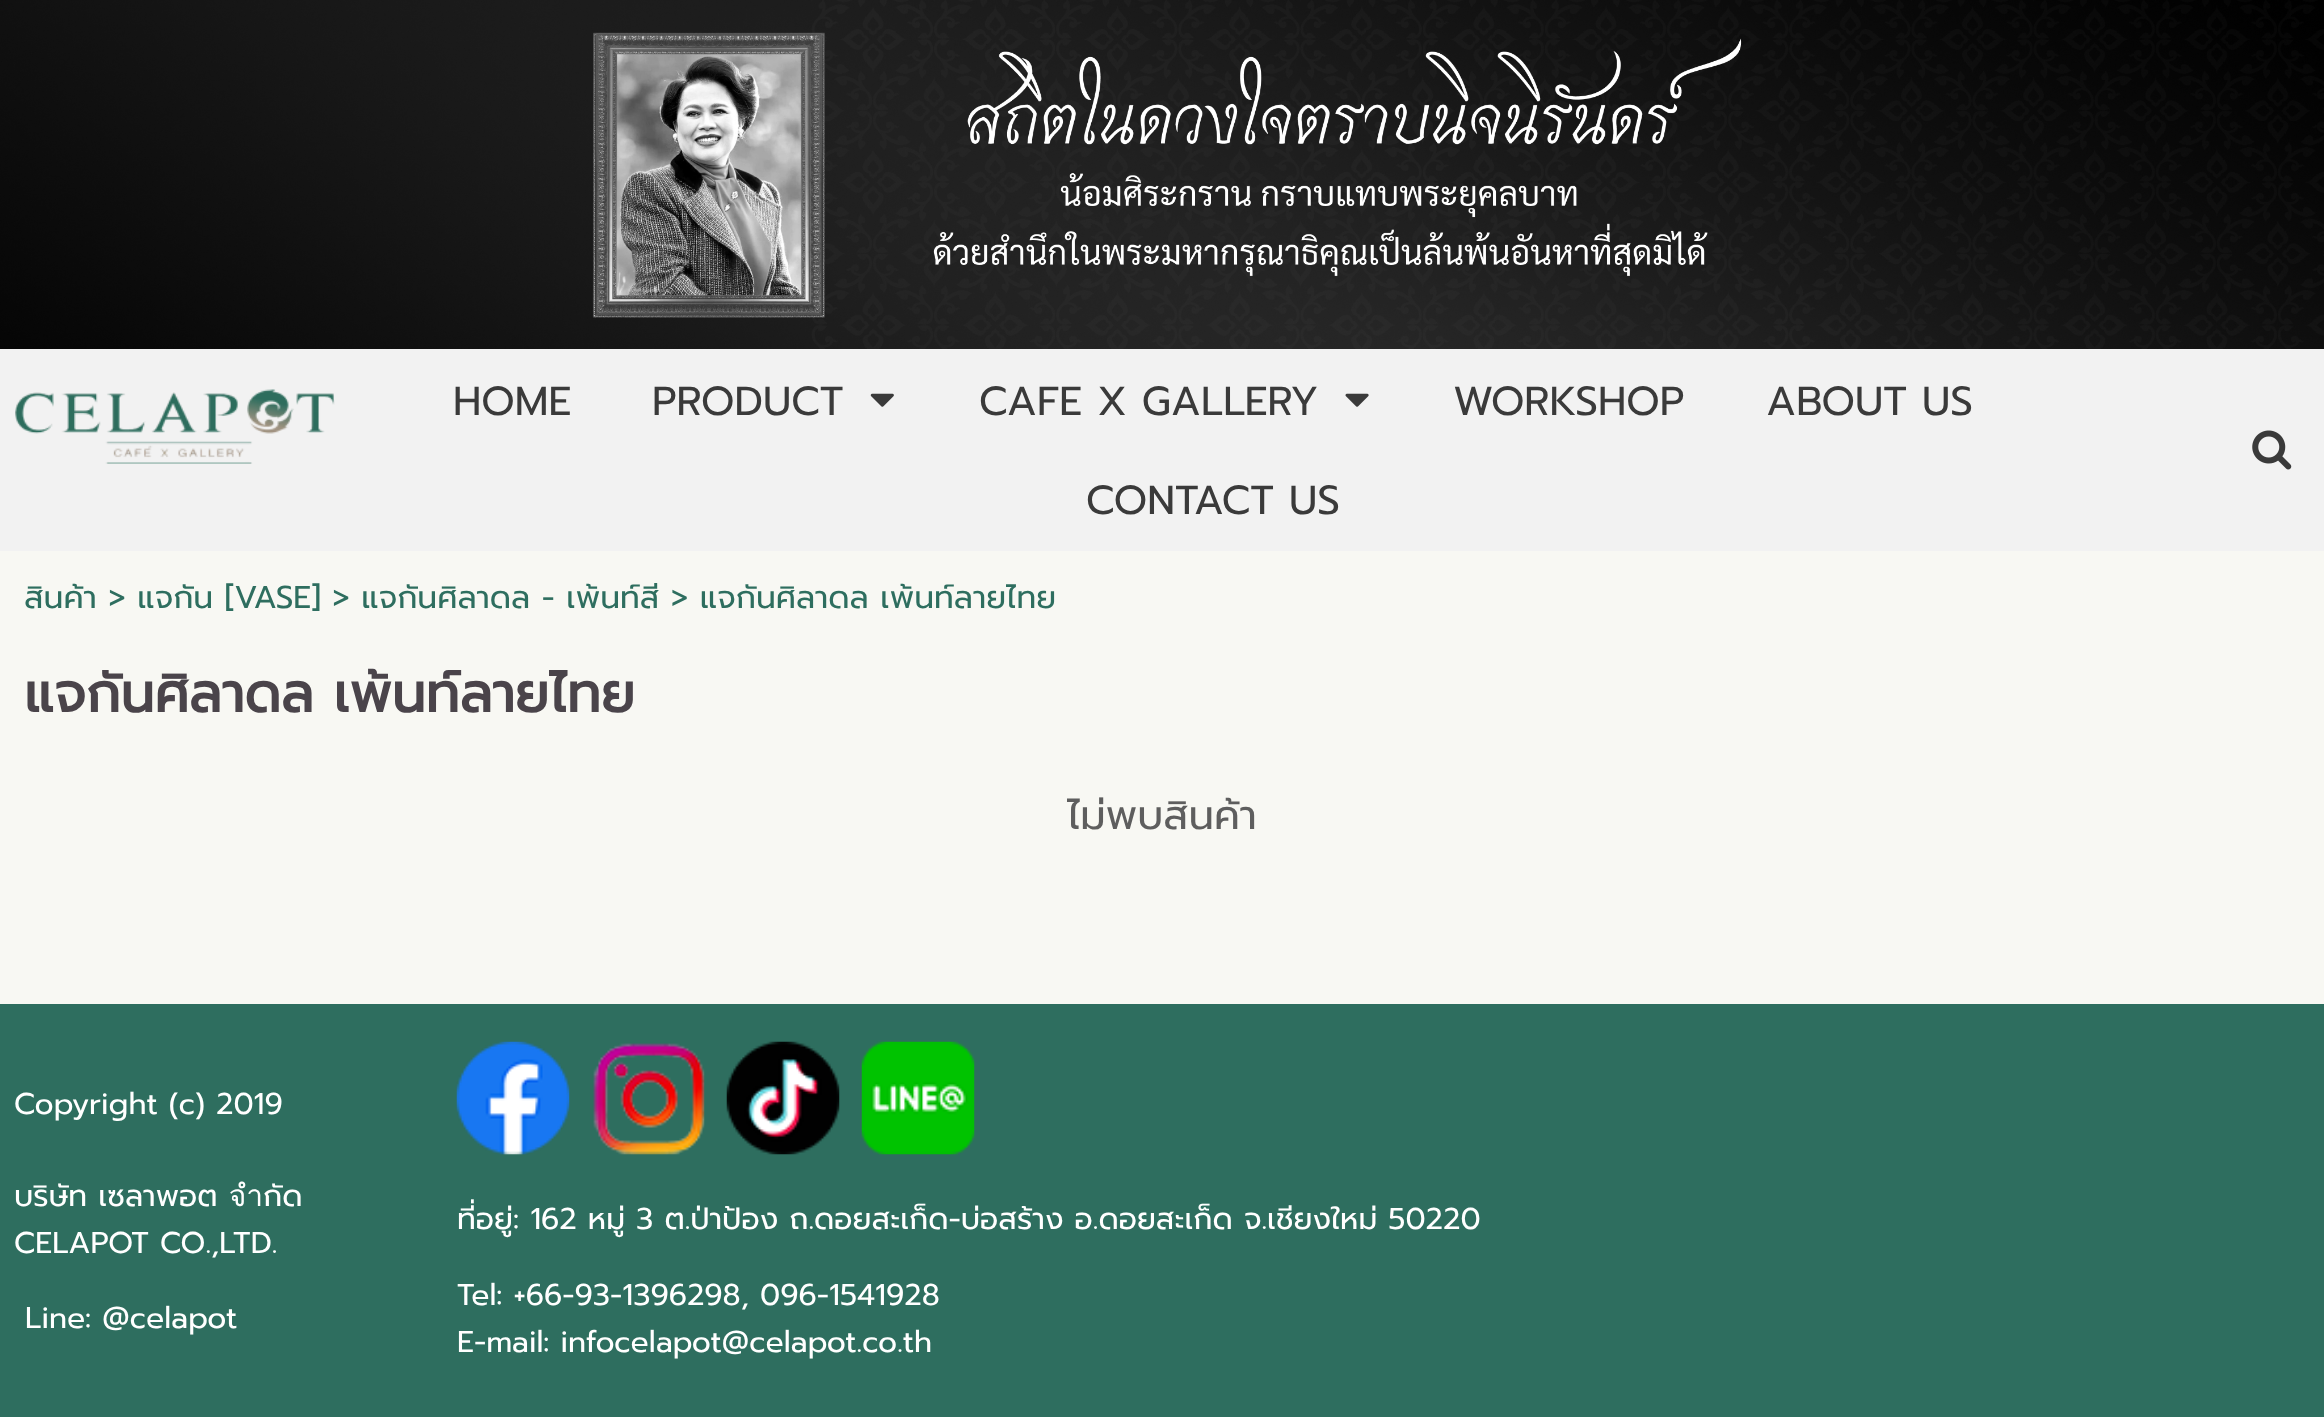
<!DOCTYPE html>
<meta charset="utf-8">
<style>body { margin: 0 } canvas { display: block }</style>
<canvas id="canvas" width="2324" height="1417"></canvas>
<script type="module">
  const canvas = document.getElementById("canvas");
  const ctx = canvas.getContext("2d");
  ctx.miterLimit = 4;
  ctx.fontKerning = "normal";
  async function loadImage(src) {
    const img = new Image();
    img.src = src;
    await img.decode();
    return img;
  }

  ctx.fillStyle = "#f8f8f3";
  ctx.fillRect(0, 0, 2324, 1417);
  ctx.drawImage(await loadImage("img1.png"), 0, 0, 2324, 349);
  ctx.fillStyle = "#f2f2f2";
  ctx.fillRect(0, 349, 2324, 202);
  ctx.drawImage(await loadImage("img2.png"), 15, 389, 320, 75);
  ctx.font = "40.5px Prompt";
  ctx.fillStyle = "#3a3a3a";
  ctx.fillText("HOME", 453, 415);
  ctx.fillText("PRODUCT", 652, 415);
  ctx.drawImage(await loadImage("img3.png"), 870, 393, 24, 14);
  ctx.fillText("CAFE X GALLERY", 979, 415);
  ctx.drawImage(await loadImage("img4.png"), 1345, 393, 24, 14);
  ctx.fillText("WORKSHOP", 1453, 415);
  ctx.fillText("ABOUT US", 1766, 415);
  ctx.fillText("CONTACT US", 1086, 514);
  ctx.drawImage(await loadImage("img5.png"), 2252, 430, 40, 40);
  ctx.font = "31.5px Prompt";
  ctx.fillStyle = "#2e6e5f";
  ctx.fillText("สินค้า > แจกัน [VASE] > แจกันศิลาดล - เพ้นท์สี > แจกันศิลาดล เพ้นท์ลายไทย", 24, 608);
  ctx.font = "bold 54px Prompt";
  ctx.fillStyle = "#4a444a";
  ctx.fillText("แจกันศิลาดล เพ้นท์ลายไทย", 24, 712);
  ctx.font = "40.5px Prompt";
  ctx.fillStyle = "#5e5e5e";
  ctx.fillText("ไม่พบสินค้า", 1067, 829);
  ctx.fillStyle = "#2e6e5f";
  ctx.fillRect(0, 1004, 2324, 413);
  ctx.font = "30px Prompt";
  ctx.fillStyle = "#ffffff";
  ctx.fillText("Copyright (c) 2019", 14, 1114);
  ctx.drawImage(await loadImage("img6.png"), 456, 1041, 114, 114);
  ctx.drawImage(await loadImage("img7.png"), 593, 1043, 112, 112);
  ctx.drawImage(await loadImage("img8.png"), 726, 1041, 114, 114);
  ctx.drawImage(await loadImage("img9.png"), 861, 1041, 114, 114);
  ctx.fillText("บริษัท เซลาพอต จำกัด", 14, 1206);
  ctx.fillText("CELAPOT CO.,LTD.", 14, 1253);
  ctx.fillText("ที่อยู่: 162 หมู่ 3 ต.ป่าป้อง ถ.ดอยสะเก็ด-บ่อสร้าง อ.ดอยสะเก็ด จ.เชียงใหม่ 50220", 457, 1229);
  ctx.fillText("Line: @celapot", 25, 1328);
  ctx.fillText("Tel: +66-93-1396298, 096-1541928", 457, 1305);
  ctx.fillText("E-mail: infocelapot@celapot.co.th", 457, 1352);
</script>
